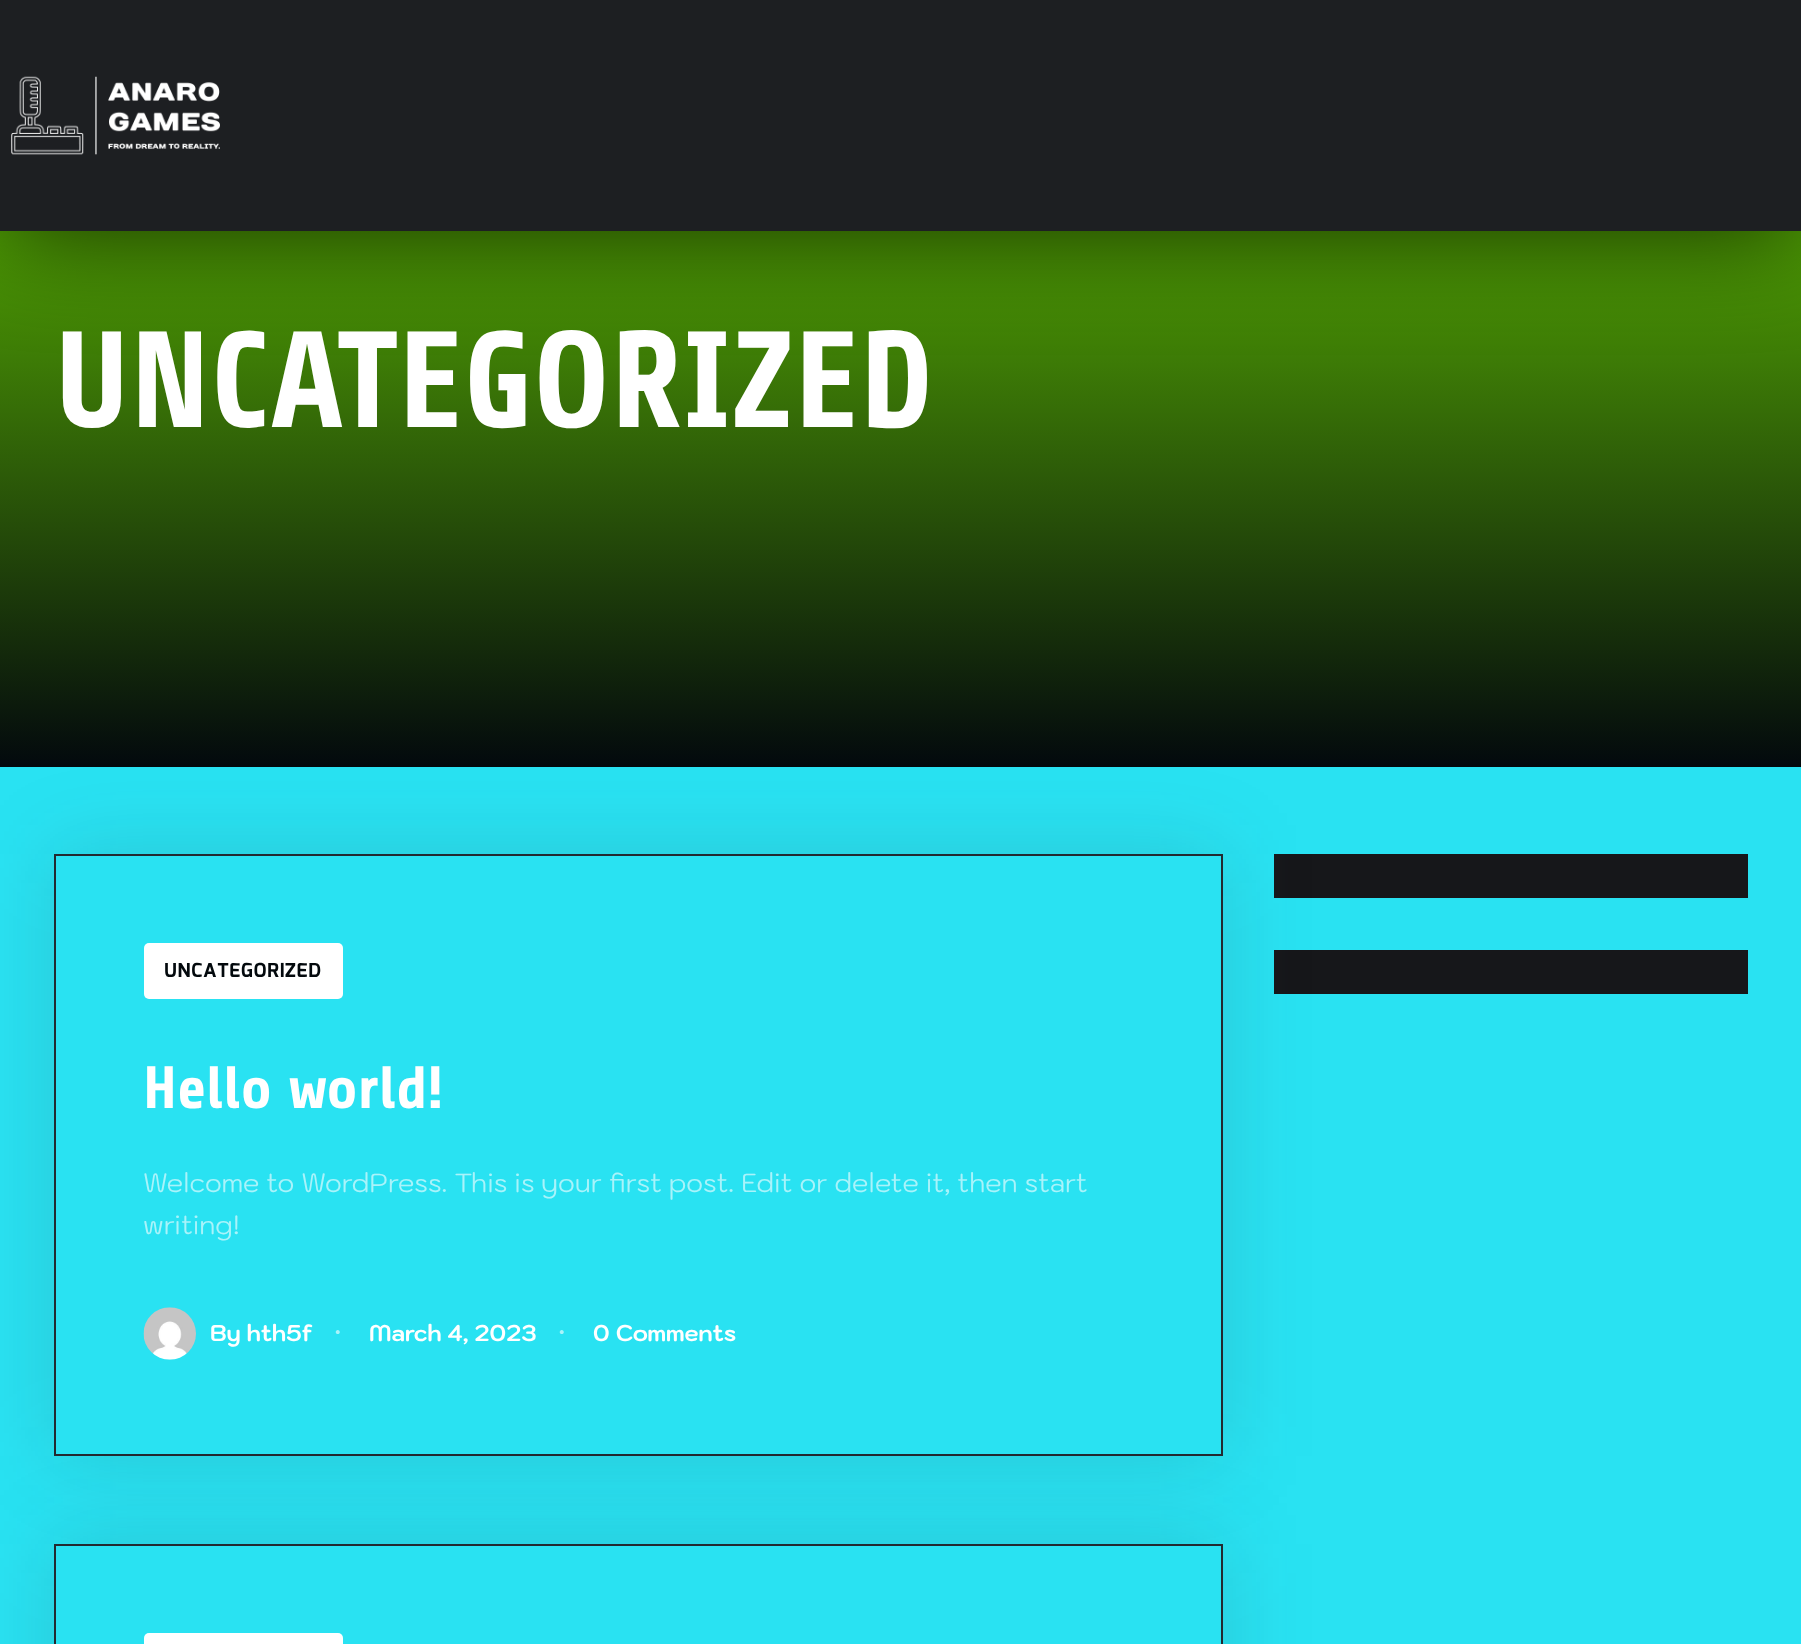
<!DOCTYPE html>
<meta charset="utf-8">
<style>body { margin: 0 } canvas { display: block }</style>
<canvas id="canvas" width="1801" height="1644"></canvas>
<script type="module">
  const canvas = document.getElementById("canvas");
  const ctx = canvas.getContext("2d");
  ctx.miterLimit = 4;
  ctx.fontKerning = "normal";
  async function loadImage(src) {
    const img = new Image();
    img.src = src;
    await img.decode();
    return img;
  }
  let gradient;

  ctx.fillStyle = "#29e2f2";
  ctx.fillRect(0, 0, 1801, 1644);
  ctx.fillStyle = "#16171a";
  ctx.fillRect(1274, 854, 474, 44);
  ctx.fillRect(1274, 950, 474, 44);
  ctx.save();
  ctx.beginPath();
  ctx.moveTo(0, 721);
  ctx.lineTo(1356, 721);
  ctx.lineTo(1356, 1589);
  ctx.lineTo(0, 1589);
  ctx.closePath();
  ctx.moveTo(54, 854);
  ctx.lineTo(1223, 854);
  ctx.lineTo(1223, 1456);
  ctx.lineTo(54, 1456);
  ctx.closePath();
  ctx.clip("evenodd");
  ctx.fillStyle = "rgba(41, 48, 55, 0.15)";
  ctx.filter = "blur(44px)";
  ctx.beginPath();
  ctx.rect(54, 854, 1169, 602);
  ctx.fill();
  ctx.filter = "none";
  ctx.restore();
  gradient = ctx.createLinearGradient(901, 0, 901, 767);
  gradient.addColorStop(0, "#70e000");
  gradient.addColorStop(1, "#03090d");
  ctx.fillStyle = gradient;
  ctx.fillRect(0, 231, 1801, 536);
  ctx.fillStyle = "rgba(0, 0, 0, 0.75)";
  ctx.filter = "blur(52.5px)";
  ctx.beginPath();
  ctx.rect(0, 0, 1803, 231);
  ctx.fill();
  ctx.filter = "none";
  ctx.fillStyle = "#1d1f22";
  ctx.fillRect(0, 0, 1801, 231);
  ctx.drawImage(await loadImage("img1.png"), 11, 76, 209, 79);
  ctx.font = "bold 136.5px Share";
  ctx.fillStyle = "#ffffff";
  ctx.fillText("UNCATEGORIZED", 54, 427);
  ctx.strokeStyle = "#232930";
  ctx.lineWidth = 2;
  ctx.strokeRect(55, 855, 1167, 600);
  ctx.beginPath();
  ctx.roundRect(144, 943, 199, 56, 5);
  ctx.fill();
  ctx.letterSpacing = "0.75px";
  ctx.font = "bold 19.25px Mina";
  ctx.fillStyle = "#03090d";
  ctx.fillText("UNCATEGORIZED", 164, 977);
  ctx.letterSpacing = "0px";
  ctx.font = "bold 59.5px Share";
  ctx.fillStyle = "#ffffff";
  ctx.fillText("Hello world!", 143, 1108);
  ctx.font = "26.25px Kodchasan";
  ctx.fillStyle = "#a9f3fa";
  ctx.fillText("Welcome to WordPress. This is your first post. Edit or delete it, then start", 143, 1192);
  ctx.fillText("writing!", 143, 1234);
  ctx.drawImage(await loadImage("img2.png"), 143, 1307, 53, 53);
  ctx.font = "bold 22.75px Kodchasan";
  ctx.fillStyle = "#ffffff";
  ctx.fillText("By hth5f", 210, 1341);
  ctx.font = "35px Kodchasan";
  ctx.fillStyle = "#a9f3fa";
  ctx.fillText("·", 334, 1344);
  ctx.font = "bold 22.75px Kodchasan";
  ctx.fillStyle = "#ffffff";
  ctx.fillText("March 4, 2023", 369, 1341);
  ctx.font = "35px Kodchasan";
  ctx.fillStyle = "#a9f3fa";
  ctx.fillText("·", 558, 1344);
  ctx.font = "bold 22.75px Kodchasan";
  ctx.fillStyle = "#ffffff";
  ctx.fillText("0 Comments", 593, 1341);
  ctx.save();
  ctx.beginPath();
  ctx.moveTo(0, 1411);
  ctx.lineTo(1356, 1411);
  ctx.lineTo(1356, 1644);
  ctx.lineTo(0, 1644);
  ctx.closePath();
  ctx.moveTo(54, 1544);
  ctx.lineTo(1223, 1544);
  ctx.lineTo(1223, 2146);
  ctx.lineTo(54, 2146);
  ctx.closePath();
  ctx.clip("evenodd");
  ctx.fillStyle = "rgba(41, 48, 55, 0.15)";
  ctx.filter = "blur(44px)";
  ctx.beginPath();
  ctx.rect(54, 1544, 1169, 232);
  ctx.fill();
  ctx.filter = "none";
  ctx.restore();
  ctx.strokeRect(55, 1545, 1167, 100);
  ctx.beginPath();
  ctx.roundRect(144, 1633, 199, 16, 5);
  ctx.fill();
</script>
